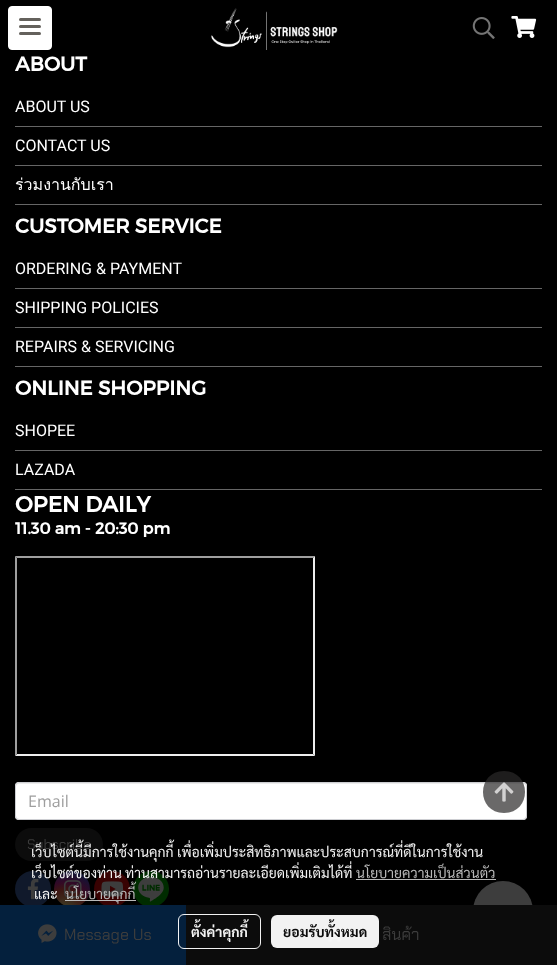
<!DOCTYPE html>
<meta charset="utf-8">
<style>body { margin: 0 } canvas { display: block }</style>
<canvas id="canvas" width="557" height="965"></canvas>
<script type="module">
  const canvas = document.getElementById("canvas");
  const ctx = canvas.getContext("2d");
  ctx.miterLimit = 4;
  ctx.fontKerning = "normal";
  async function loadImage(src) {
    const img = new Image();
    img.src = src;
    await img.decode();
    return img;
  }
  let gradient;

  ctx.fillStyle = "#000000";
  ctx.fillRect(0, 0, 557, 965);
  ctx.fillStyle = "rgba(0, 0, 0, 0.12)";
  ctx.filter = "blur(5px)";
  ctx.beginPath();
  ctx.rect(0, 2, 557, 56);
  ctx.fill();
  ctx.filter = "none";
  ctx.fillStyle = "rgba(0, 0, 0, 0.16)";
  ctx.filter = "blur(2.5px)";
  ctx.beginPath();
  ctx.rect(0, 2, 557, 56);
  ctx.fill();
  ctx.filter = "none";
  ctx.fillStyle = "#ffffff";
  ctx.beginPath();
  ctx.roundRect(8.5, 6.5, 43, 43, 3.5);
  ctx.fill();
  ctx.strokeStyle = "#ffffff";
  ctx.stroke();
  ctx.fillStyle = "#64615c";
  ctx.beginPath();
  ctx.roundRect(19, 25, 22, 3, 1.5);
  ctx.fill();
  ctx.beginPath();
  ctx.roundRect(19, 18, 22, 3, 1.5);
  ctx.fill();
  ctx.beginPath();
  ctx.roundRect(19, 32, 22, 3, 1.5);
  ctx.fill();
  ctx.drawImage(await loadImage("img1.png"), 211, 8, 127, 42);
  ctx.drawImage(await loadImage("img2.png"), 472, 17, 23, 22);
  ctx.drawImage(await loadImage("img3.png"), 511, 16, 26, 22);
  ctx.font = "bold 20px Montserrat";
  ctx.fillStyle = "#ffffff";
  ctx.fillText("ABOUT", 15, 71);
  ctx.fillStyle = "#666666";
  ctx.fillRect(15, 126, 527, 1);
  ctx.font = "16px Roboto";
  ctx.fillStyle = "#ffffff";
  ctx.fillText("ABOUT US", 15, 112);
  ctx.fillStyle = "#666666";
  ctx.fillRect(15, 165, 527, 1);
  ctx.fillStyle = "#ffffff";
  ctx.fillText("CONTACT US", 15, 151);
  ctx.fillStyle = "#666666";
  ctx.fillRect(15, 204, 527, 1);
  ctx.font = "16px Loma";
  ctx.fillStyle = "#ffffff";
  ctx.fillText("ร่วมงานกับเรา", 15, 190);
  ctx.font = "bold 20px Montserrat";
  ctx.fillText("CUSTOMER SERVICE", 15, 233);
  ctx.fillStyle = "#666666";
  ctx.fillRect(15, 288, 527, 1);
  ctx.font = "16px Roboto";
  ctx.fillStyle = "#ffffff";
  ctx.fillText("ORDERING & PAYMENT", 15, 274);
  ctx.fillStyle = "#666666";
  ctx.fillRect(15, 327, 527, 1);
  ctx.fillStyle = "#ffffff";
  ctx.fillText("SHIPPING POLICIES", 15, 313);
  ctx.fillStyle = "#666666";
  ctx.fillRect(15, 366, 527, 1);
  ctx.fillStyle = "#ffffff";
  ctx.fillText("REPAIRS & SERVICING", 15, 352);
  ctx.font = "bold 20px Montserrat";
  ctx.fillText("ONLINE SHOPPING", 15, 395);
  ctx.fillStyle = "#666666";
  ctx.fillRect(15, 450, 527, 1);
  ctx.font = "16px Roboto";
  ctx.fillStyle = "#ffffff";
  ctx.fillText("SHOPEE", 15, 436);
  ctx.fillStyle = "#666666";
  ctx.fillRect(15, 489, 527, 1);
  ctx.fillStyle = "#ffffff";
  ctx.fillText("LAZADA", 15, 475);
  ctx.font = "bold 22px Montserrat";
  ctx.fillText("OPEN DAILY", 15, 512);
  ctx.font = "bold 16px Montserrat";
  ctx.fillText("11.30 am - 20:30 pm", 15, 534);
  ctx.fillStyle = "#9f9f9f";
  ctx.beginPath();
  ctx.moveTo(15, 556);
  ctx.lineTo(315, 556);
  ctx.lineTo(313, 558);
  ctx.lineTo(17, 558);
  ctx.closePath();
  ctx.fill();
  ctx.fillStyle = "#eeeeee";
  ctx.beginPath();
  ctx.moveTo(315, 556);
  ctx.lineTo(315, 756);
  ctx.lineTo(313, 754);
  ctx.lineTo(313, 558);
  ctx.closePath();
  ctx.fill();
  ctx.beginPath();
  ctx.moveTo(315, 756);
  ctx.lineTo(15, 756);
  ctx.lineTo(17, 754);
  ctx.lineTo(313, 754);
  ctx.closePath();
  ctx.fill();
  ctx.fillStyle = "#9f9f9f";
  ctx.beginPath();
  ctx.moveTo(15, 756);
  ctx.lineTo(15, 556);
  ctx.lineTo(17, 558);
  ctx.lineTo(17, 754);
  ctx.closePath();
  ctx.fill();
  ctx.fillStyle = "#ffffff";
  ctx.beginPath();
  ctx.roundRect(15, 782, 512, 38, 4);
  ctx.fill();
  ctx.fillStyle = "#ececec";
  ctx.beginPath();
  ctx.moveTo(19, 784);
  ctx.lineTo(523, 784);
  ctx.bezierCurveTo(525, 784, 526, 785, 526, 787);
  ctx.lineTo(526, 785);
  ctx.lineTo(524, 783);
  ctx.lineTo(19, 783);
  ctx.bezierCurveTo(17, 783, 16, 785, 16, 787);
  ctx.bezierCurveTo(16, 785, 17, 784, 19, 784);
  ctx.closePath();
  ctx.fill();
  ctx.beginPath();
  ctx.roundRect(15.5, 782.5, 511, 37, 3.5);
  ctx.strokeStyle = "#cdced2";
  ctx.stroke();
  ctx.font = "16px Open Sans";
  ctx.fillStyle = "#9e9e9e";
  ctx.fillText("Email", 28, 807);
  ctx.fillStyle = "#0c0c0c";
  ctx.beginPath();
  ctx.roundRect(15, 828, 88, 33, 16.5);
  ctx.fill();
  ctx.font = "14px Chakra Petch";
  ctx.fillStyle = "#3d3d3d";
  ctx.fillText("Subscribe", 27, 849);
  ctx.fillStyle = "#10192b";
  ctx.beginPath();
  ctx.arc(33, 889, 18, 0, Math.PI * 2);
  ctx.fill();
  ctx.drawImage(await loadImage("img4.png"), 27, 878, 12, 22);
  gradient = ctx.createRadialGradient(65, 910, 0, 65, 910, 46);
  gradient.addColorStop(0, "#3d3b24");
  gradient.addColorStop(0.05, "#3d3b24");
  gradient.addColorStop(0.45, "#3d1512");
  gradient.addColorStop(0.6, "#330926");
  gradient.addColorStop(0.9, "#0a1638");
  ctx.fillStyle = gradient;
  ctx.beginPath();
  ctx.arc(72, 889, 18, 0, Math.PI * 2);
  ctx.fill();
  ctx.drawImage(await loadImage("img5.png"), 63, 880, 19, 18);
  ctx.fillStyle = "#380202";
  ctx.beginPath();
  ctx.arc(112, 889, 18, 0, Math.PI * 2);
  ctx.fill();
  ctx.drawImage(await loadImage("img6.png"), 101, 881, 23, 16);
  ctx.fillStyle = "#002c00";
  ctx.beginPath();
  ctx.arc(151, 889, 18, 0, Math.PI * 2);
  ctx.fill();
  ctx.drawImage(await loadImage("img7.png"), 133, 871, 36, 31);
  ctx.fillStyle = "#04203d";
  ctx.fillRect(0, 905, 186, 60);
  ctx.drawImage(await loadImage("img8.png"), 38, 924, 19, 19);
  ctx.font = "16px Chakra Petch";
  ctx.fillStyle = "#3d3d3d";
  ctx.fillText("Message Us", 64, 940);
  ctx.beginPath();
  ctx.arc(503, 911, 30, 0, Math.PI * 2);
  ctx.fill();
  ctx.fillStyle = "#0c0c0c";
  ctx.fillRect(186, 905, 371, 60);
  ctx.drawImage(await loadImage("img9.png"), 324, 926, 18, 16);
  ctx.fillStyle = "#3d3d3d";
  ctx.fillText("สินค้า", 382, 940);
  ctx.fillStyle = "rgba(43, 42, 42, 0.7)";
  ctx.beginPath();
  ctx.moveTo(504, 771);
  ctx.bezierCurveTo(476, 771, 476, 813, 504, 813);
  ctx.bezierCurveTo(532, 813, 532, 771, 504, 771);
  ctx.closePath();
  ctx.fill();
  ctx.drawImage(await loadImage("img10.png"), 494, 782, 20, 20);
  ctx.font = "14px Sarabun";
  ctx.fillStyle = "#f2f2f2";
  ctx.fillText("เว็บไซต์นี้มีการใช้งานคุกกี้ เพื่อเพิ่มประสิทธิภาพและประสบการณ์ที่ดีในการใช้งาน", 31, 857);
  ctx.fillText("เว็บไซต์ของท่าน", 31, 878);
  ctx.fillText("ท่านสามารถอ่านรายละเอียดเพิ่มเติมได้ที่", 125, 878);
  ctx.fillStyle = "#b8b8b8";
  ctx.fillText("นโยบายความเป็นส่วนตัว", 356, 878);
  ctx.fillRect(356, 879, 140, 1);
  ctx.fillStyle = "#f2f2f2";
  ctx.fillText("และ", 34, 899);
  ctx.fillStyle = "rgba(194, 194, 194, 0.95)";
  ctx.fillRect(65, 900, 71, 1);
  ctx.fillStyle = "#b8b8b8";
  ctx.fillText("นโยบายคุกกี้", 65, 899);
  ctx.beginPath();
  ctx.roundRect(178.5, 914.5, 82, 34, 5.5);
  ctx.strokeStyle = "rgba(255, 255, 255, 0.95)";
  ctx.stroke();
  ctx.font = "bold 14px Sarabun";
  ctx.fillStyle = "#f2f2f2";
  ctx.fillText("ตั้งค่าคุกกี้", 191, 937);
  ctx.fillStyle = "rgba(255, 255, 255, 0.95)";
  ctx.beginPath();
  ctx.roundRect(271, 915, 108, 33, 6);
  ctx.fill();
  ctx.fillStyle = "#0c0c0c";
  ctx.fillText("ยอมรับทั้งหมด", 283, 937);
</script>
